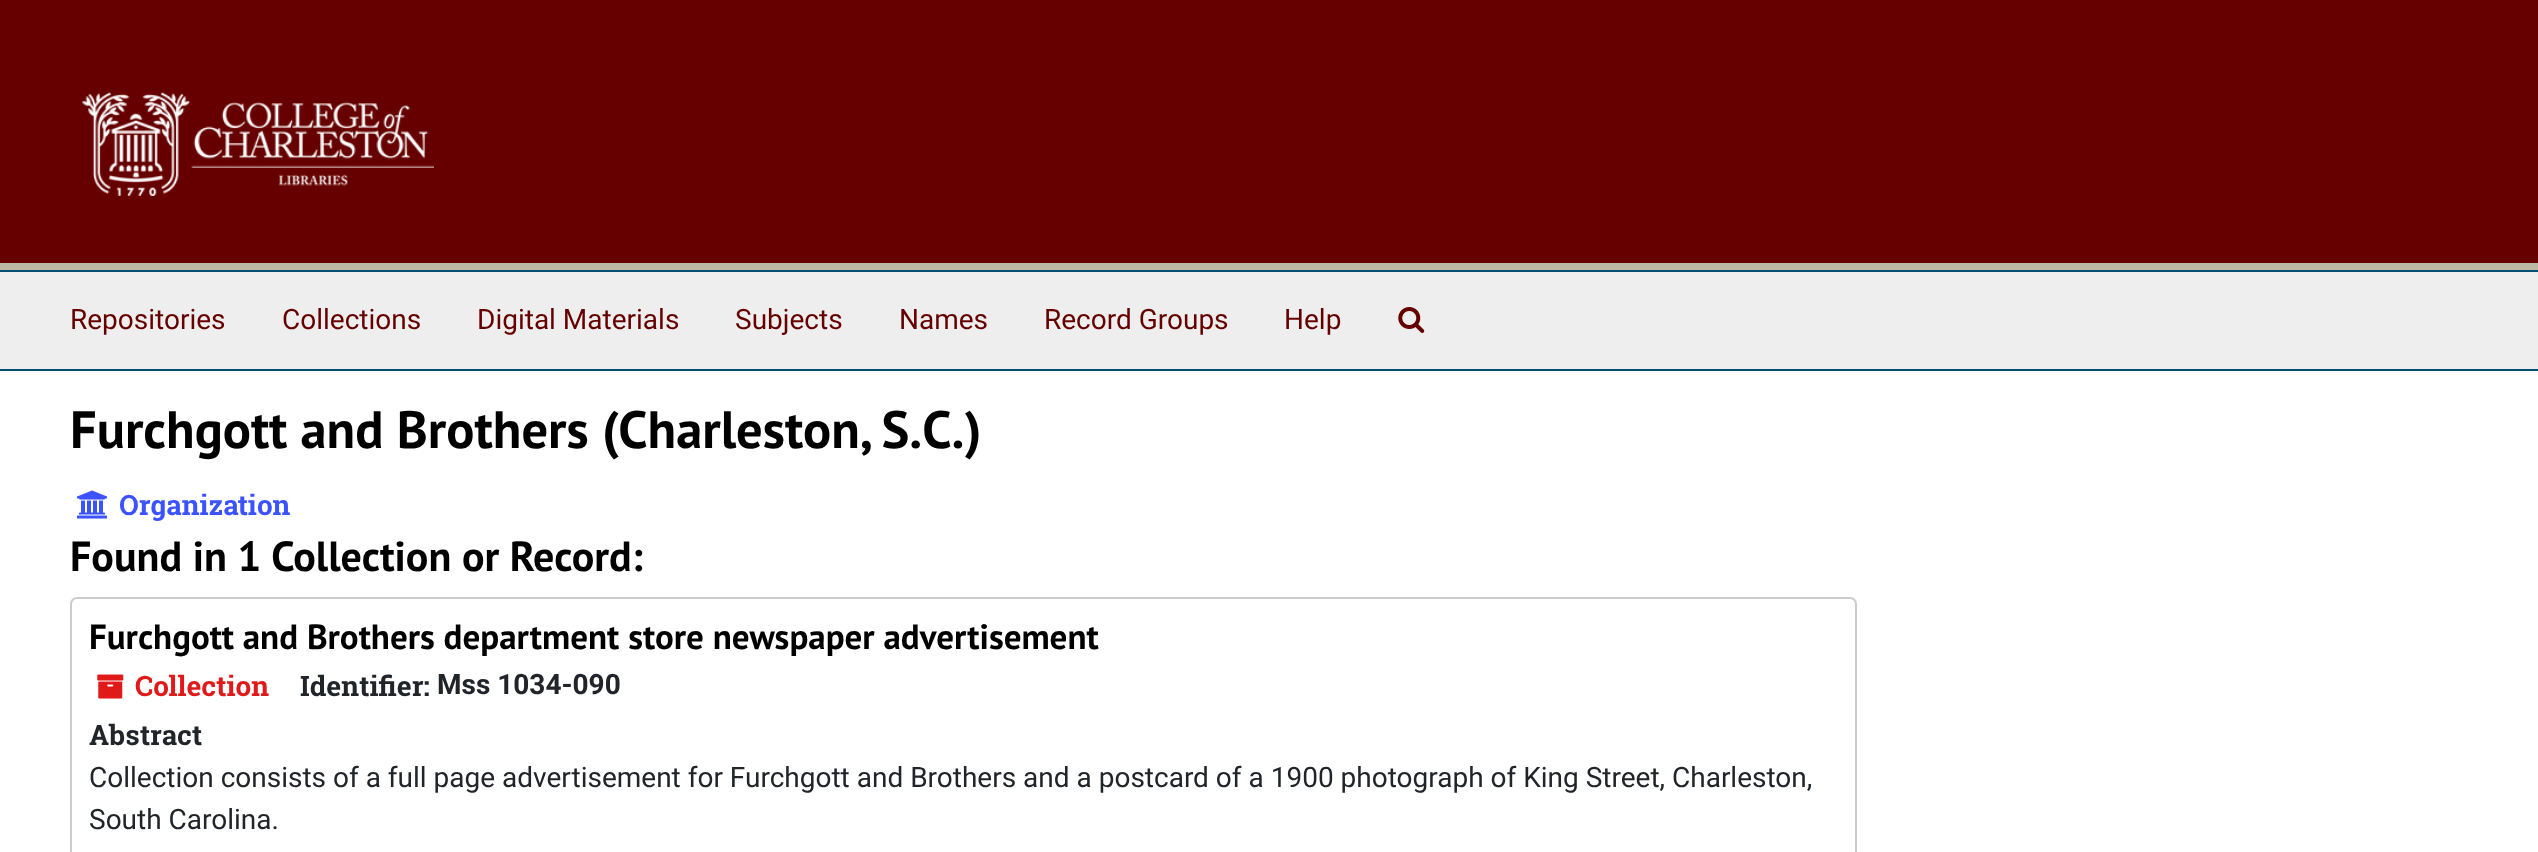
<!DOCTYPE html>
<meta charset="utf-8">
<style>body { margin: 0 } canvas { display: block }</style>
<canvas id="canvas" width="2538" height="852"></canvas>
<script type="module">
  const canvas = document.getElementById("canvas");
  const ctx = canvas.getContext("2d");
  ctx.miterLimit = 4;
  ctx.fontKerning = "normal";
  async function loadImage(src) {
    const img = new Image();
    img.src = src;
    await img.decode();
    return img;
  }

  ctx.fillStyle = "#ffffff";
  ctx.fillRect(0, 0, 2538, 852);
  ctx.fillStyle = "#660000";
  ctx.fillRect(0, 0, 2538, 263);
  ctx.fillStyle = "#beb9a6";
  ctx.fillRect(0, 263, 2538, 7);
  ctx.drawImage(await loadImage("img1.png"), 82, 92, 352, 104);
  ctx.fillStyle = "#eeeeee";
  ctx.fillRect(0, 272, 2538, 97);
  ctx.fillStyle = "#004f6f";
  ctx.fillRect(0, 270, 2538, 2);
  ctx.fillRect(0, 369, 2538, 2);
  ctx.font = "28px Roboto";
  ctx.fillStyle = "#660000";
  ctx.fillText("Repositories", 70, 329);
  ctx.fillText("Collections", 282, 329);
  ctx.fillText("Digital Materials", 477, 329);
  ctx.fillText("Subjects", 735, 329);
  ctx.fillText("Names", 899, 329);
  ctx.fillText("Record Groups", 1044, 329);
  ctx.fillText("Help", 1284, 329);
  ctx.drawImage(await loadImage("img2.png"), 1398, 307, 27, 26);
  ctx.font = "bold 52.5px PT Sans";
  ctx.fillStyle = "#000000";
  ctx.fillText("Furchgott and Brothers (Charleston, S.C.)", 70, 448);
  ctx.drawImage(await loadImage("img3.png"), 77, 490, 30, 29);
  ctx.font = "bold 28px Roboto Slab";
  ctx.fillStyle = "#3b52ff";
  ctx.fillText("Organization", 119, 515);
  ctx.font = "bold 42px PT Sans";
  ctx.fillStyle = "#000000";
  ctx.fillText("Found in 1 Collection or Record:", 70, 571);
  ctx.beginPath();
  ctx.roundRect(71, 598, 1785, 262, 6);
  ctx.strokeStyle = "#cccccc";
  ctx.lineWidth = 2;
  ctx.stroke();
  ctx.font = "bold 35px PT Sans";
  ctx.fillText("Furchgott and Brothers department store newspaper advertisement", 89, 649);
  ctx.drawImage(await loadImage("img4.png"), 97, 674, 27, 25);
  ctx.font = "bold 28px Roboto Slab";
  ctx.fillStyle = "#e01919";
  ctx.fillText("Collection", 135, 696);
  ctx.fillStyle = "#212529";
  ctx.fillText("Identifier:", 300, 696);
  ctx.font = "bold 28px Roboto";
  ctx.fillText("Mss 1034-090", 437, 694);
  ctx.font = "bold 28px Roboto Slab";
  ctx.fillText("Abstract", 89, 745);
  ctx.font = "28px Roboto";
  ctx.fillText("Collection consists of a full page advertisement for Furchgott and Brothers and a postcard of a 1900 photograph of King Street, Charleston,", 89, 787);
  ctx.fillText("South Carolina.", 89, 829);
</script>
